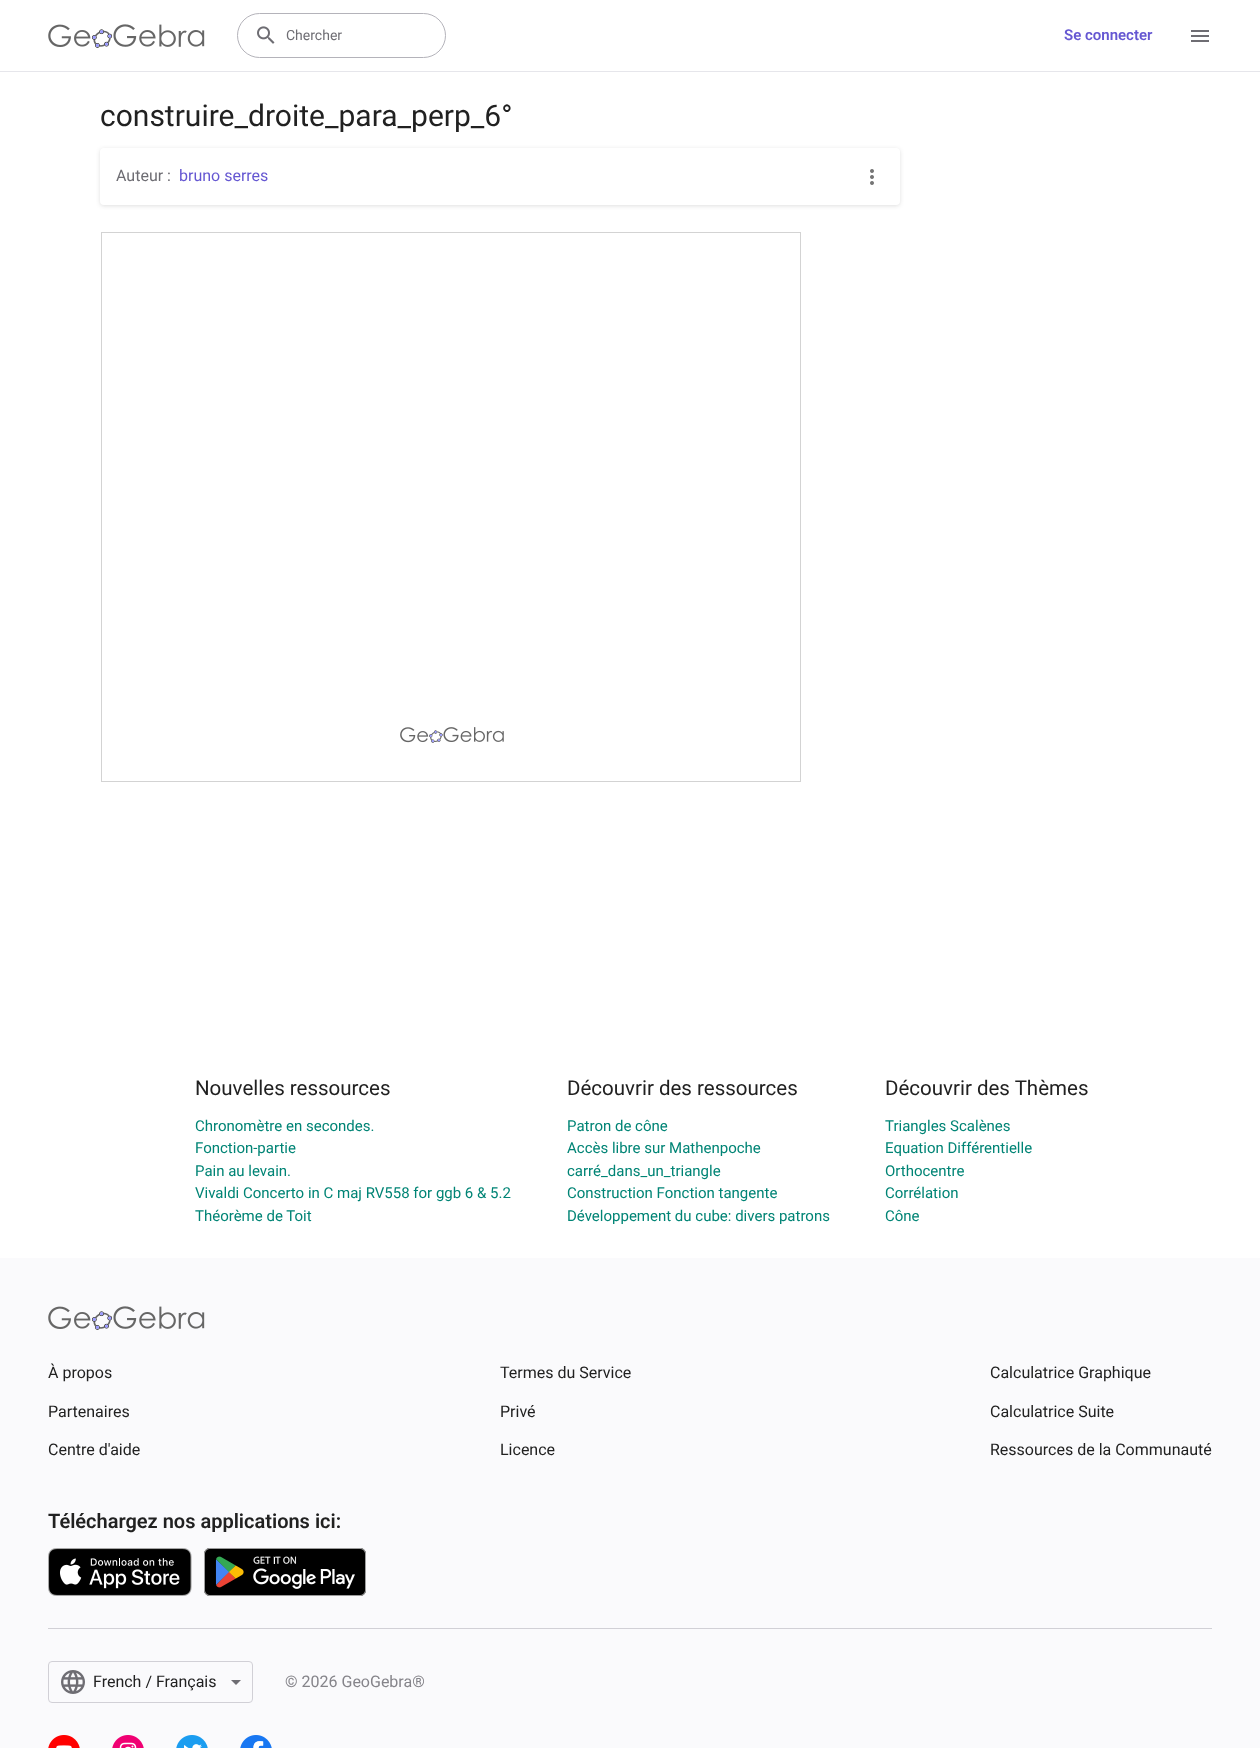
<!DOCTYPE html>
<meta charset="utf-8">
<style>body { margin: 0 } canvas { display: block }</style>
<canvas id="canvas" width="1260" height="1748"></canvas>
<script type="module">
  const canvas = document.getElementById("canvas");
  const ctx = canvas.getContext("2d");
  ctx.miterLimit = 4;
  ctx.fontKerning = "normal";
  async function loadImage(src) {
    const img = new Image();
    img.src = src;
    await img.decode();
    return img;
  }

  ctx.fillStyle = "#ffffff";
  ctx.fillRect(0, 0, 1260, 1748);
  ctx.fillStyle = "#e6e6eb";
  ctx.fillRect(0, 71, 1260, 1);
  ctx.drawImage(await loadImage("img1.png"), 48, 24, 157, 24);
  ctx.beginPath();
  ctx.roundRect(237.5, 13.5, 208, 44, 22);
  ctx.strokeStyle = "#b4b3ba";
  ctx.stroke();
  ctx.drawImage(await loadImage("img2.png"), 257, 26, 18, 18);
  ctx.font = "14px Roboto";
  ctx.fillStyle = "#6e6d73";
  ctx.fillText("Chercher", 286, 40);
  ctx.font = "600 15px Roboto";
  ctx.fillStyle = "#6557d2";
  ctx.fillText("Se connecter", 1064, 40);
  ctx.drawImage(await loadImage("img3.png"), 1191, 30, 18, 12);
  ctx.font = "30px Roboto";
  ctx.fillStyle = "#212121";
  ctx.fillText("construire_droite_para_perp_6°", 100, 126);
  ctx.fillStyle = "rgba(28, 28, 31, 0.14)";
  ctx.filter = "blur(2px)";
  ctx.beginPath();
  ctx.roundRect(100, 149, 800, 57, 4);
  ctx.fill();
  ctx.filter = "none";
  ctx.fillStyle = "#ffffff";
  ctx.beginPath();
  ctx.roundRect(100, 148, 800, 57, 4);
  ctx.fill();
  ctx.font = "16px Roboto";
  ctx.fillStyle = "#6e6d73";
  ctx.fillText("Auteur :", 116, 181);
  ctx.fillStyle = "#6557d2";
  ctx.fillText("bruno serres", 179, 181);
  ctx.drawImage(await loadImage("img4.png"), 870, 169, 4, 16);
  ctx.drawImage(await loadImage("img5.png"), 400, 727, 104, 16);
  ctx.strokeStyle = "#d3d3d3";
  ctx.strokeRect(101.5, 232.5, 699, 549);
  ctx.font = "20.5px Roboto";
  ctx.fillStyle = "#212121";
  ctx.fillText("Nouvelles ressources", 195, 1095);
  ctx.font = "15px Roboto";
  ctx.fillStyle = "#008475";
  ctx.fillText("Chronomètre en secondes.", 195, 1131);
  ctx.fillText("Fonction-partie", 195, 1153);
  ctx.fillText("Pain au levain.", 195, 1176);
  ctx.fillText("Vivaldi Concerto in C maj RV558 for ggb 6 & 5.2", 195, 1198);
  ctx.fillText("Théorème de Toit", 195, 1221);
  ctx.font = "20.5px Roboto";
  ctx.fillStyle = "#212121";
  ctx.fillText("Découvrir des ressources", 567, 1095);
  ctx.font = "15px Roboto";
  ctx.fillStyle = "#008475";
  ctx.fillText("Patron de cône", 567, 1131);
  ctx.fillText("Accès libre sur Mathenpoche", 567, 1153);
  ctx.fillText("carré_dans_un_triangle", 567, 1176);
  ctx.fillText("Construction Fonction tangente", 567, 1198);
  ctx.fillText("Développement du cube: divers patrons", 567, 1221);
  ctx.font = "20.5px Roboto";
  ctx.fillStyle = "#212121";
  ctx.fillText("Découvrir des Thèmes", 885, 1095);
  ctx.font = "15px Roboto";
  ctx.fillStyle = "#008475";
  ctx.fillText("Triangles Scalènes", 885, 1131);
  ctx.fillText("Equation Différentielle", 885, 1153);
  ctx.fillText("Orthocentre", 885, 1176);
  ctx.fillText("Corrélation", 885, 1198);
  ctx.fillText("Cône", 885, 1221);
  ctx.fillStyle = "#fafafc";
  ctx.fillRect(0, 1258, 1260, 490);
  ctx.drawImage(await loadImage("img6.png"), 48, 1306, 157, 24);
  ctx.font = "16px Roboto";
  ctx.fillStyle = "#212121";
  ctx.fillText("À propos", 48, 1378);
  ctx.fillText("Partenaires", 48, 1417);
  ctx.fillText("Centre d'aide", 48, 1455);
  ctx.fillText("Termes du Service", 500, 1378);
  ctx.fillText("Privé", 500, 1417);
  ctx.fillText("Licence", 500, 1455);
  ctx.fillText("Calculatrice Graphique", 990, 1378);
  ctx.fillText("Calculatrice Suite", 990, 1417);
  ctx.fillText("Ressources de la Communauté", 990, 1455);
  ctx.font = "600 20px Roboto";
  ctx.fillText("Téléchargez nos applications ici:", 48, 1528);
  ctx.drawImage(await loadImage("img7.png"), 48, 1548, 144, 48);
  ctx.drawImage(await loadImage("img8.png"), 204, 1548, 162, 48);
  ctx.fillStyle = "#d1d0d6";
  ctx.fillRect(48, 1628, 1164, 1);
  ctx.beginPath();
  ctx.roundRect(48.5, 1661.5, 204, 41, 3.5);
  ctx.strokeStyle = "#d1d0d6";
  ctx.stroke();
  ctx.drawImage(await loadImage("img9.png"), 61, 1670, 24, 24);
  ctx.font = "16px Roboto";
  ctx.fillStyle = "#212121";
  ctx.fillText("French / Français", 93, 1687);
  ctx.fillStyle = "#6e6d73";
  ctx.beginPath();
  ctx.moveTo(231, 1680);
  ctx.lineTo(236, 1685);
  ctx.lineTo(241, 1680);
  ctx.closePath();
  ctx.fill();
  ctx.fillStyle = "#85848a";
  ctx.fillText("© 2026 GeoGebra®", 285, 1687);
  ctx.drawImage(await loadImage("img10.png"), 48, 1735, 32, 13);
  ctx.drawImage(await loadImage("img11.png"), 112, 1735, 32, 13);
  ctx.drawImage(await loadImage("img12.png"), 176, 1735, 32, 13);
  ctx.drawImage(await loadImage("img13.png"), 240, 1735, 32, 13);
</script>
